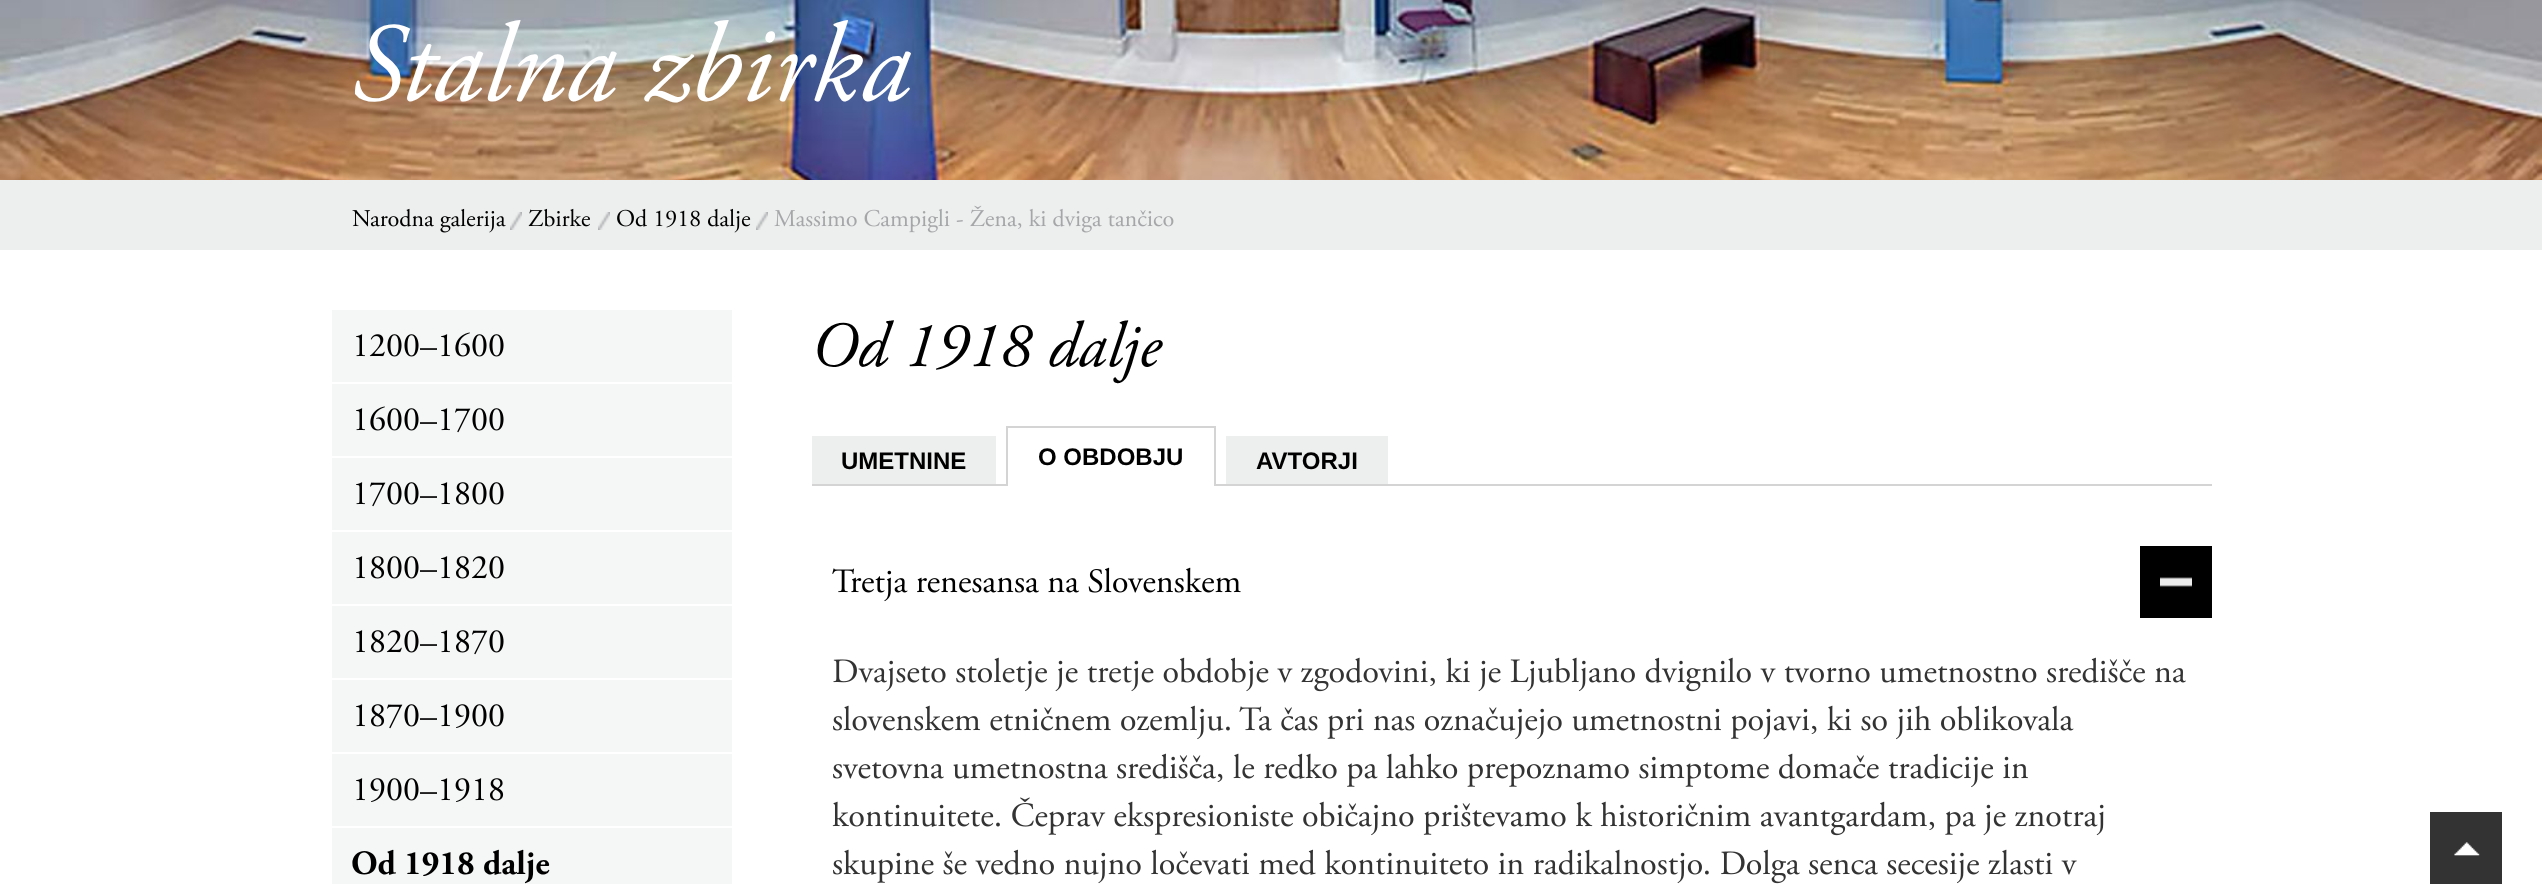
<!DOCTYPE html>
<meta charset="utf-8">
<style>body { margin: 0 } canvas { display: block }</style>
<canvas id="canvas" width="2542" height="884"></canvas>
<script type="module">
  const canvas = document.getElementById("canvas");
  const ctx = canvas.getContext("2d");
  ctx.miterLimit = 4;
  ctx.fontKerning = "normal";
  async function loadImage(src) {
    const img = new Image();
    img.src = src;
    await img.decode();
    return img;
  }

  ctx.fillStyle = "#ffffff";
  ctx.fillRect(0, 0, 2542, 884);
  ctx.drawImage(await loadImage("img1.png"), 0, 0, 2542, 180);
  ctx.font = "italic 112px Adobe Garamond";
  ctx.fillText("Stalna zbirka", 351, 100);
  ctx.fillStyle = "#edeeee";
  ctx.fillRect(0, 180, 2542, 70);
  ctx.drawImage(await loadImage("img2.png"), 510, 212, 12, 18);
  ctx.drawImage(await loadImage("img3.png"), 352, 208, 154, 25);
  ctx.drawImage(await loadImage("img2.png"), 598, 212, 12, 18);
  ctx.drawImage(await loadImage("img4.png"), 528, 208, 62, 19);
  ctx.drawImage(await loadImage("img2.png"), 756, 212, 12, 18);
  ctx.drawImage(await loadImage("img5.png"), 617, 208, 134, 25);
  ctx.drawImage(await loadImage("img6.png"), 774, 205, 400, 28);
  ctx.font = "italic 64px Adobe Garamond";
  ctx.fillStyle = "#000000";
  ctx.fillText("Od 1918 dalje", 811, 366);
  ctx.fillStyle = "#d4d4d4";
  ctx.fillRect(812, 484, 1400, 2);
  ctx.fillStyle = "#edeeee";
  ctx.fillRect(812, 436, 184, 48);
  ctx.font = "bold 24px Liberation Sans";
  ctx.fillStyle = "#000000";
  ctx.fillText("UMETNINE", 841, 469);
  ctx.fillStyle = "#ffffff";
  ctx.fillRect(1008, 484, 206, 2);
  ctx.fillStyle = "#d4d4d4";
  ctx.fillRect(1006, 426, 210, 2);
  ctx.fillRect(1214, 426, 2, 60);
  ctx.fillRect(1006, 426, 2, 60);
  ctx.fillStyle = "#000000";
  ctx.fillText("O OBDOBJU", 1038, 465);
  ctx.fillStyle = "#edeeee";
  ctx.fillRect(1226, 436, 162, 48);
  ctx.fillStyle = "#000000";
  ctx.fillText("AVTORJI", 1256, 469);
  ctx.drawImage(await loadImage("img7.png"), 832, 567, 409, 35);
  ctx.fillRect(2140, 546, 72, 72);
  ctx.drawImage(await loadImage("img8.png"), 2160, 577, 32, 10);
  ctx.drawImage(await loadImage("img9.png"), 833, 657, 1353, 35);
  ctx.drawImage(await loadImage("img10.png"), 833, 705, 1241, 35);
  ctx.drawImage(await loadImage("img11.png"), 833, 753, 1195, 35);
  ctx.drawImage(await loadImage("img12.png"), 832, 797, 1272, 39);
  ctx.drawImage(await loadImage("img13.png"), 833, 849, 1244, 35);
  ctx.fillStyle = "#f5f7f6";
  ctx.fillRect(332, 310, 400, 72);
  ctx.drawImage(await loadImage("img14.png"), 356, 332, 148, 25);
  ctx.fillRect(332, 384, 400, 72);
  ctx.drawImage(await loadImage("img15.png"), 356, 406, 148, 27);
  ctx.fillRect(332, 458, 400, 72);
  ctx.drawImage(await loadImage("img16.png"), 356, 482, 148, 25);
  ctx.fillRect(332, 532, 400, 72);
  ctx.drawImage(await loadImage("img17.png"), 356, 556, 148, 23);
  ctx.fillRect(332, 606, 400, 72);
  ctx.drawImage(await loadImage("img18.png"), 356, 630, 148, 25);
  ctx.fillRect(332, 680, 400, 72);
  ctx.drawImage(await loadImage("img19.png"), 356, 704, 148, 25);
  ctx.fillRect(332, 754, 400, 72);
  ctx.drawImage(await loadImage("img20.png"), 356, 778, 148, 24);
  ctx.fillRect(332, 828, 400, 56);
  ctx.font = "bold 34px Adobe Garamond";
  ctx.fillStyle = "#000000";
  ctx.fillText("Od 1918 dalje", 351, 874);
  ctx.drawImage(await loadImage("img21.png"), 2430, 812, 72, 72);
</script>
